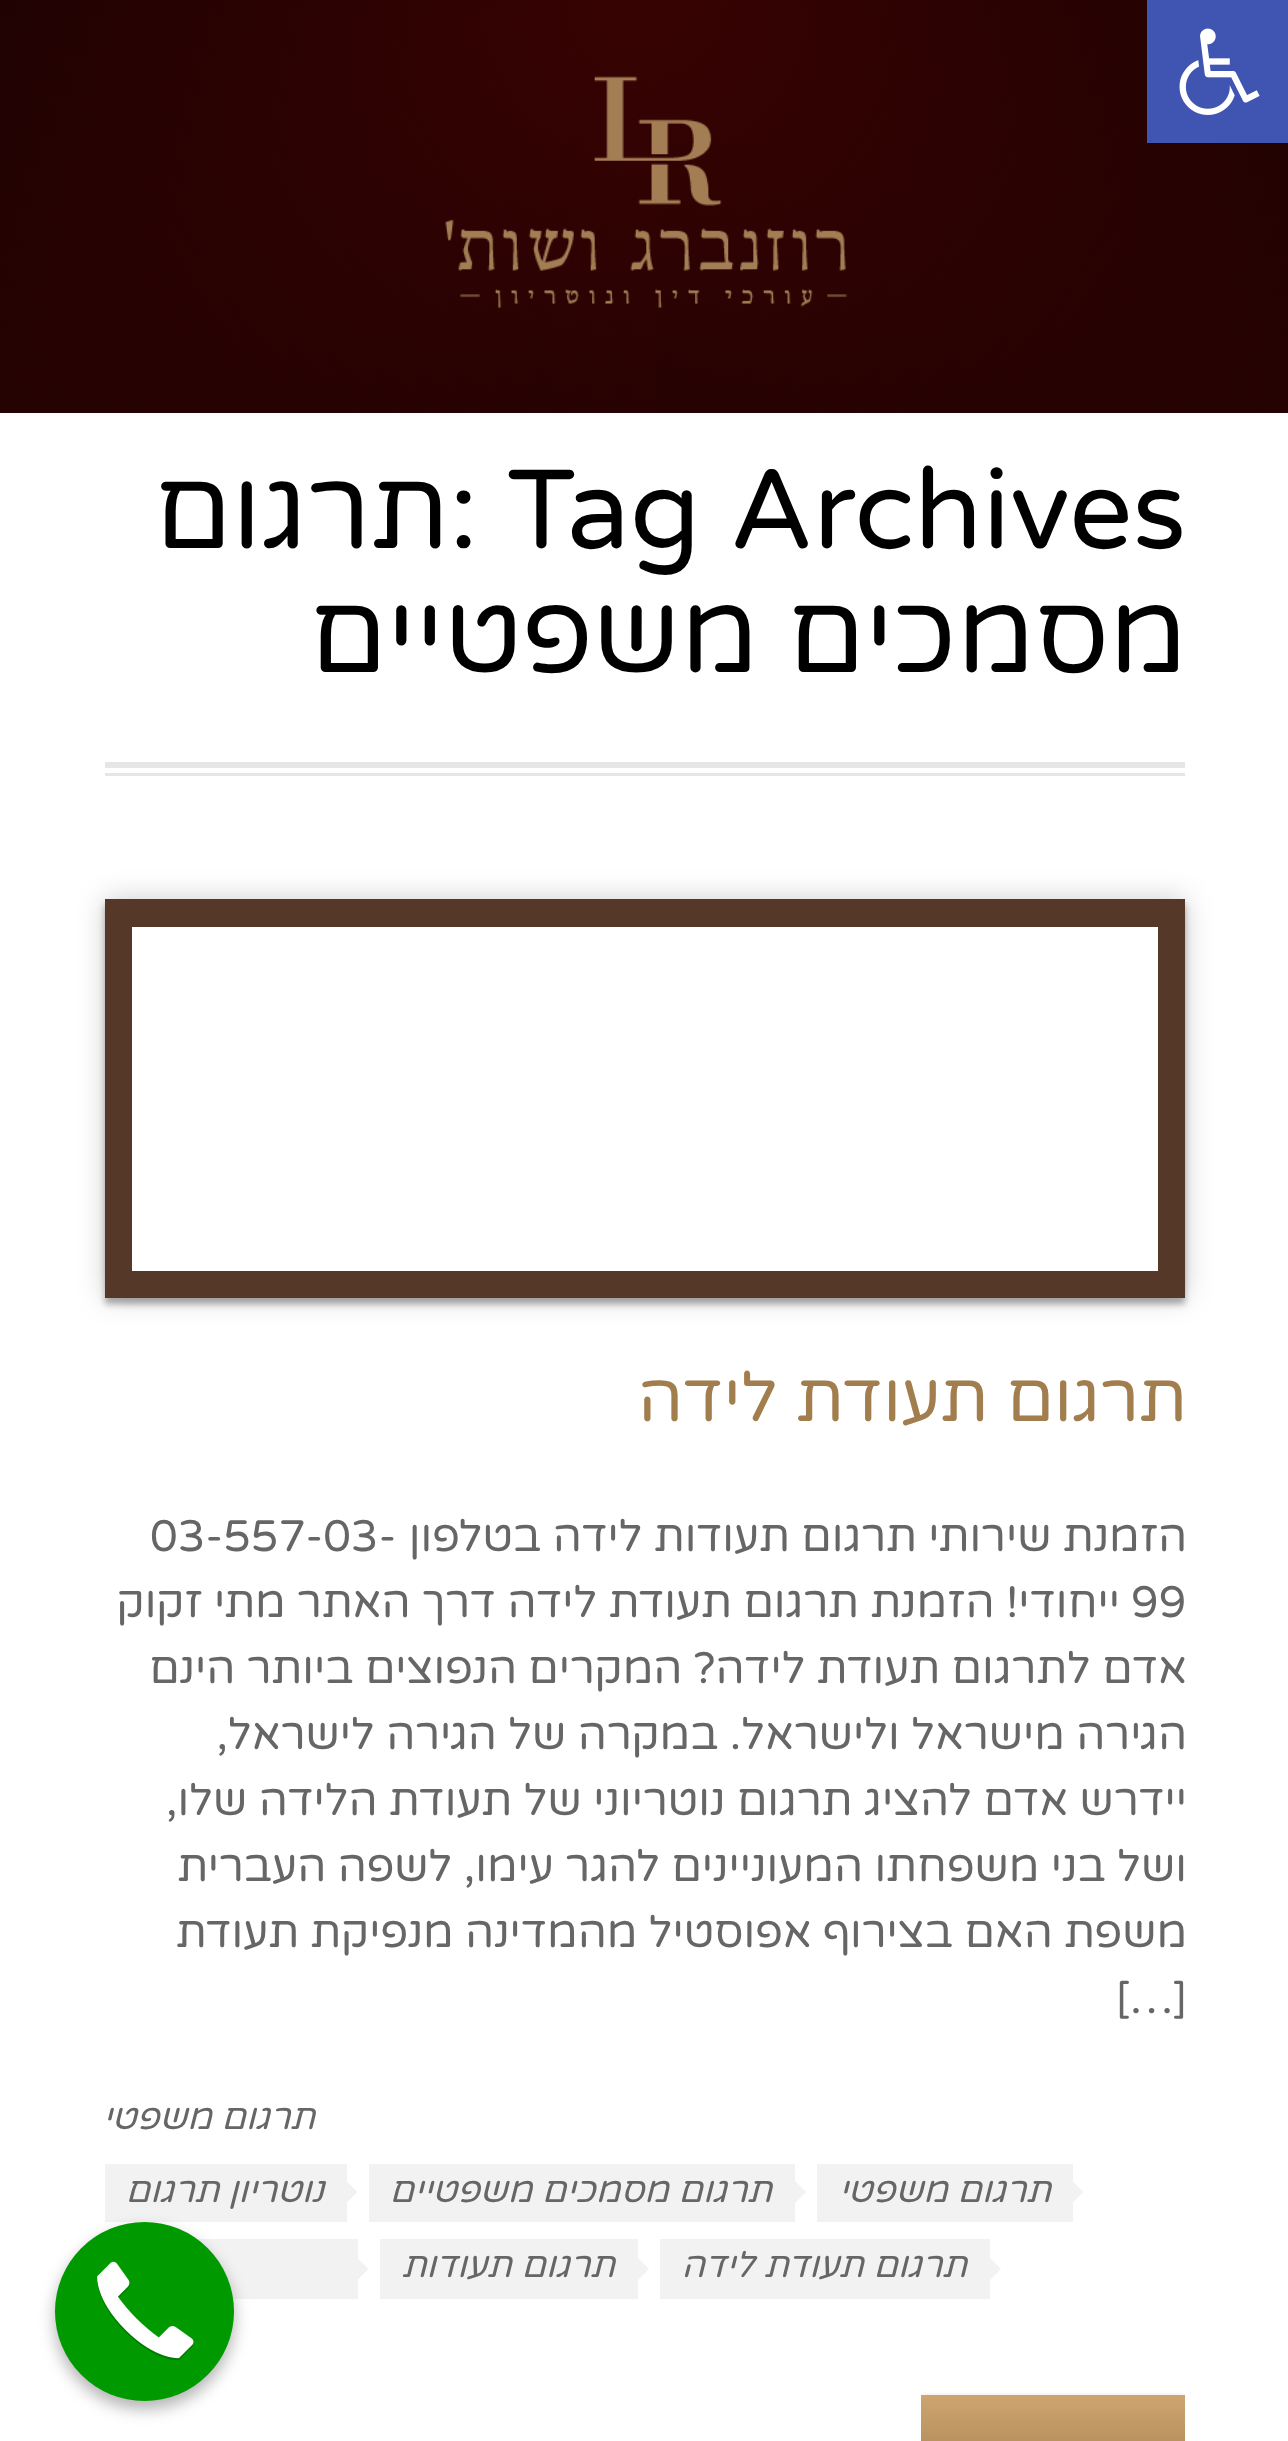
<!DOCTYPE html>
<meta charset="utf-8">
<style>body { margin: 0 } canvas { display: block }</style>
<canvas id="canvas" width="1288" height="2441"></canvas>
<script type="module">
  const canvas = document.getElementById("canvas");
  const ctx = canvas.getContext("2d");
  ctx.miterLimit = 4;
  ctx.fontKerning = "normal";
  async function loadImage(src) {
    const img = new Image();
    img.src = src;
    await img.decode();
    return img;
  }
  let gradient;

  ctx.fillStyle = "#ffffff";
  ctx.fillRect(0, 0, 1288, 2441);
  gradient = ctx.createRadialGradient(1290, 413, 0, 1290, 413, 1354);
  gradient.addColorStop(0, "#250202");
  gradient.addColorStop(0.57, "#120202");
  ctx.fillStyle = gradient;
  ctx.fillRect(0, 0, 1288, 413);
  gradient = ctx.createRadialGradient(0, 413, 0, 0, 413, 1354);
  gradient.addColorStop(0, "rgba(94, 2, 2, 0.25)");
  gradient.addColorStop(0.57, "rgba(94, 2, 2, 0)");
  ctx.fillStyle = gradient;
  ctx.fillRect(0, 0, 659, 413);
  gradient = ctx.createRadialGradient(645, 0, 0, 645, 0, 770);
  gradient.addColorStop(0, "rgba(94, 2, 2, 0.5)");
  gradient.addColorStop(1, "rgba(94, 2, 2, 0)");
  ctx.fillStyle = gradient;
  ctx.fillRect(0, 0, 1288, 413);
  ctx.fillStyle = "#4054b2";
  ctx.fillRect(1147, 0, 141, 143);
  ctx.drawImage(await loadImage("img1.png"), 1179, 28, 81, 87);
  ctx.drawImage(await loadImage("img2.png"), 445, 76, 403, 232);
  ctx.fillStyle = "#e6e6e6";
  ctx.fillRect(105, 762, 1080, 6);
  ctx.font = "112.25px Varela Round";
  ctx.fillStyle = "#000000";
  ctx.fillText(": Tag Archives", 449, 548);
  ctx.direction = "rtl";
  ctx.fillText("תרגום", 449, 548);
  ctx.fillText("מסמכים משפטיים", 1187, 672);
  ctx.fillStyle = "#e6e6e6";
  ctx.fillRect(105, 773, 1080, 3);
  ctx.save();
  ctx.beginPath();
  ctx.moveTo(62, 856);
  ctx.lineTo(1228, 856);
  ctx.lineTo(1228, 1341);
  ctx.lineTo(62, 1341);
  ctx.closePath();
  ctx.moveTo(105, 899);
  ctx.lineTo(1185, 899);
  ctx.lineTo(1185, 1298);
  ctx.lineTo(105, 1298);
  ctx.closePath();
  ctx.clip("evenodd");
  ctx.fillStyle = "rgba(0, 0, 0, 0.2)";
  ctx.filter = "blur(14px)";
  ctx.beginPath();
  ctx.rect(105, 899, 1080, 399);
  ctx.fill();
  ctx.filter = "none";
  ctx.restore();
  ctx.save();
  ctx.beginPath();
  ctx.moveTo(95, 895);
  ctx.lineTo(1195, 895);
  ctx.lineTo(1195, 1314);
  ctx.lineTo(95, 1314);
  ctx.closePath();
  ctx.moveTo(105, 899);
  ctx.lineTo(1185, 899);
  ctx.lineTo(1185, 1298);
  ctx.lineTo(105, 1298);
  ctx.closePath();
  ctx.clip("evenodd");
  ctx.fillStyle = "rgba(0, 0, 0, 0.3)";
  ctx.filter = "blur(3px)";
  ctx.beginPath();
  ctx.rect(105, 905, 1080, 399);
  ctx.fill();
  ctx.filter = "none";
  ctx.restore();
  ctx.fillStyle = "#563828";
  ctx.fillRect(105, 899, 1080, 28);
  ctx.fillRect(1158, 927, 27, 344);
  ctx.fillRect(105, 927, 27, 344);
  ctx.fillRect(105, 1271, 1080, 27);
  ctx.font = "68.75px Varela Round";
  ctx.fillStyle = "#a27e4f";
  ctx.fillText("תרגום תעודת לידה", 1187, 1421);
  ctx.font = "44px Varela Round";
  ctx.fillStyle = "#666666";
  ctx.fillText("הזמנת שירותי תרגום תעודות לידה בטלפון", 1187, 1551);
  ctx.direction = "ltr";
  ctx.fillText("03-557-03-", 150, 1551);
  ctx.fillText("99", 1131, 1617);
  ctx.direction = "rtl";
  ctx.fillText("ייחודי! הזמנת תרגום תעודת לידה דרך האתר מתי זקוק", 1120, 1617);
  ctx.fillText("אדם לתרגום תעודת לידה? המקרים הנפוצים ביותר הינם", 1187, 1683);
  ctx.fillText("הגירה מישראל ולישראל. במקרה של הגירה לישראל,", 1187, 1749);
  ctx.fillText("יידרש אדם להציג תרגום נוטריוני של תעודת הלידה שלו,", 1187, 1815);
  ctx.fillText("ושל בני משפחתו המעוניינים להגר עימו, לשפה העברית", 1187, 1881);
  ctx.fillText("משפת האם בצירוף אפוסטיל מהמדינה מנפיקת תעודת", 1187, 1947);
  ctx.direction = "ltr";
  ctx.fillText("[…]", 1116, 2013);
  ctx.direction = "rtl";
  ctx.font = "italic 35.75px Varela Round";
  ctx.fillText("תרגום משפטי", 315, 2129);
  ctx.fillStyle = "#f2f2f2";
  ctx.fillRect(817, 2164, 256, 58);
  ctx.beginPath();
  ctx.moveTo(1072.5, 2203);
  ctx.lineTo(1072.5, 2181);
  ctx.lineTo(1083.5, 2192);
  ctx.closePath();
  ctx.fill();
  ctx.fillStyle = "#666666";
  ctx.fillText("תרגום משפטי", 1051, 2202);
  ctx.fillStyle = "#f2f2f2";
  ctx.fillRect(369, 2164, 426, 58);
  ctx.beginPath();
  ctx.moveTo(795, 2203);
  ctx.lineTo(795, 2181);
  ctx.lineTo(806, 2192);
  ctx.closePath();
  ctx.fill();
  ctx.fillStyle = "#666666";
  ctx.fillText("תרגום מסמכים משפטיים", 772, 2202);
  ctx.fillStyle = "#f2f2f2";
  ctx.fillRect(105, 2164, 242, 58);
  ctx.beginPath();
  ctx.moveTo(346.5, 2203);
  ctx.lineTo(346.5, 2181);
  ctx.lineTo(357.5, 2192);
  ctx.closePath();
  ctx.fill();
  ctx.fillStyle = "#666666";
  ctx.fillText("נוטריון תרגום", 324, 2202);
  ctx.fillStyle = "#f2f2f2";
  ctx.fillRect(660, 2239, 330, 60);
  ctx.beginPath();
  ctx.moveTo(990, 2280);
  ctx.lineTo(990, 2258);
  ctx.lineTo(1001, 2269);
  ctx.closePath();
  ctx.fill();
  ctx.fillStyle = "#666666";
  ctx.fillText("תרגום תעודת לידה", 967, 2277);
  ctx.fillStyle = "#f2f2f2";
  ctx.fillRect(380, 2239, 258, 60);
  ctx.beginPath();
  ctx.moveTo(638, 2280);
  ctx.lineTo(638, 2258);
  ctx.lineTo(649, 2269);
  ctx.closePath();
  ctx.fill();
  ctx.fillStyle = "#666666";
  ctx.fillText("תרגום תעודות", 615, 2277);
  ctx.fillStyle = "#f2f2f2";
  ctx.fillRect(197, 2239, 161, 60);
  ctx.beginPath();
  ctx.moveTo(357.5, 2280);
  ctx.lineTo(357.5, 2258);
  ctx.lineTo(368.5, 2269);
  ctx.closePath();
  ctx.fill();
  ctx.save();
  ctx.beginPath();
  ctx.rect(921, 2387, 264, 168);
  ctx.clip();
  ctx.fillStyle = "rgba(0, 0, 0, 0.33)";
  ctx.filter = "blur(3px)";
  ctx.beginPath();
  ctx.rect(921, 2398, 264, 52);
  ctx.fill();
  ctx.filter = "none";
  ctx.restore();
  gradient = ctx.createLinearGradient(1053, 2395, 1053, 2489);
  gradient.addColorStop(0, "#cea56f");
  gradient.addColorStop(1, "#a27e4f");
  ctx.fillStyle = gradient;
  ctx.fillRect(921, 2395, 264, 46);
  ctx.fillStyle = "rgba(0, 0, 0, 0.3)";
  ctx.filter = "blur(8px)";
  ctx.beginPath();
  ctx.roundRect(55, 2230, 179, 179, 89.5);
  ctx.fill();
  ctx.filter = "none";
  ctx.fillStyle = "#009900";
  ctx.beginPath();
  ctx.arc(144.5, 2311.5, 89.5, 0, Math.PI * 2);
  ctx.fill();
  ctx.drawImage(await loadImage("img3.png"), 97, 2261, 97, 100);
</script>
